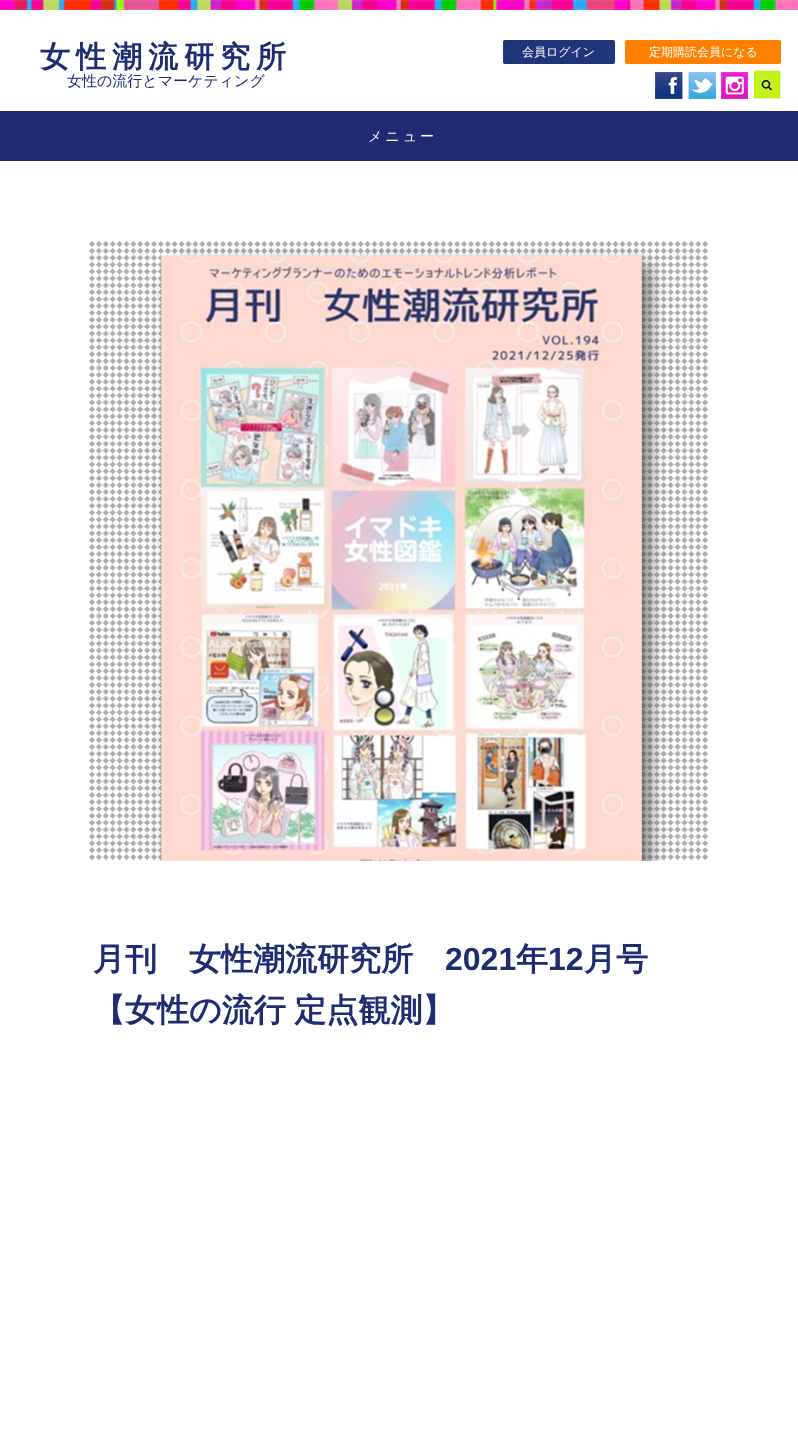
<!DOCTYPE html>
<meta charset="utf-8">
<style>body { margin: 0 } canvas { display: block }</style>
<canvas id="canvas" width="798" height="1439"></canvas>
<script type="module">
  const canvas = document.getElementById("canvas");
  const ctx = canvas.getContext("2d");
  ctx.miterLimit = 4;
  ctx.fontKerning = "normal";
  async function loadImage(src) {
    const img = new Image();
    img.src = src;
    await img.decode();
    return img;
  }

  ctx.fillStyle = "#ffffff";
  ctx.fillRect(0, 0, 798, 1439);
  ctx.drawImage(await loadImage("img1.png"), 0, 0, 798, 10);
  ctx.letterSpacing = "6px";
  ctx.font = "bold 30px WenQuanYi Zen Hei";
  ctx.fillStyle = "#1f2c72";
  ctx.fillText("女性潮流研究所", 40, 67);
  ctx.letterSpacing = "0px";
  ctx.font = "500 15px WenQuanYi Zen Hei";
  ctx.fillText("女性の流行とマーケティング", 67, 86);
  ctx.fillStyle = "#1f367b";
  ctx.beginPath();
  ctx.roundRect(503, 40, 112, 24, 2);
  ctx.fill();
  ctx.font = "500 12px WenQuanYi Zen Hei";
  ctx.fillStyle = "#ffffff";
  ctx.fillText("会員ログイン", 522, 56);
  ctx.fillStyle = "#ff8000";
  ctx.beginPath();
  ctx.roundRect(625, 40, 156, 24, 2);
  ctx.fill();
  ctx.fillStyle = "#ffffff";
  ctx.fillText("定期購読会員になる", 649, 56);
  ctx.drawImage(await loadImage("img2.png"), 655, 72, 28, 27);
  ctx.drawImage(await loadImage("img3.png"), 688, 72, 28, 27);
  ctx.drawImage(await loadImage("img4.png"), 721, 72, 27, 27);
  ctx.drawImage(await loadImage("img5.png"), 754, 70, 27, 29);
  ctx.fillStyle = "#202c72";
  ctx.fillRect(0, 111, 798, 50);
  ctx.letterSpacing = "3px";
  ctx.font = "500 14px WenQuanYi Zen Hei";
  ctx.fillStyle = "#ffffff";
  ctx.fillText("メニュー", 368, 141);
  ctx.drawImage(await loadImage("img6.png"), 89, 241, 620, 620);
  ctx.letterSpacing = "0px";
  ctx.font = "bold 32px WenQuanYi Zen Hei";
  ctx.fillStyle = "#1f2c72";
  ctx.fillText("月刊　女性潮流研究所", 93, 970);
  ctx.font = "bold 32px Liberation Sans";
  ctx.fillText("2021", 445, 970);
  ctx.font = "bold 32px WenQuanYi Zen Hei";
  ctx.fillText("年", 516, 970);
  ctx.font = "bold 32px Liberation Sans";
  ctx.fillText("12", 548, 970);
  ctx.font = "bold 32px WenQuanYi Zen Hei";
  ctx.fillText("月号", 584, 970);
  ctx.wordSpacing = "-1px";
  ctx.fillText("【女性の流行 定点観測】", 93, 1021);
</script>
